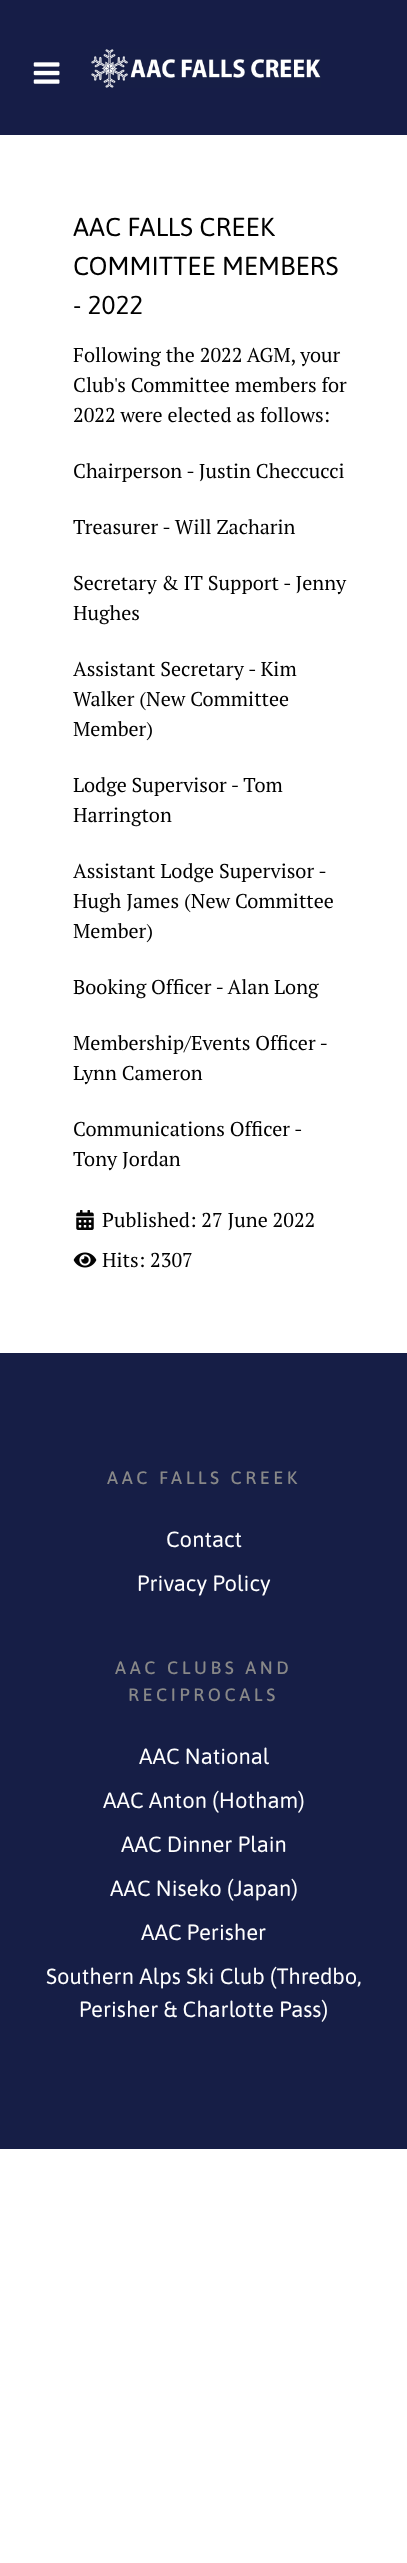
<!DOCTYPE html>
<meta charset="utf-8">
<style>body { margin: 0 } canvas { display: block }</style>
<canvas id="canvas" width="407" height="2563"></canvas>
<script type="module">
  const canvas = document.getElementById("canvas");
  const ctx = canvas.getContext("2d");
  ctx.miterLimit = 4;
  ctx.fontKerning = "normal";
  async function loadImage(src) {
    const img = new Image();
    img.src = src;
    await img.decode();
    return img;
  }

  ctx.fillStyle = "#ffffff";
  ctx.fillRect(0, 0, 407, 2563);
  ctx.fillStyle = "#161d47";
  ctx.fillRect(0, 0, 407, 135);
  ctx.drawImage(await loadImage("img1.png"), 91, 49, 230, 39);
  ctx.drawImage(await loadImage("img2.png"), 33, 62, 27, 22);
  ctx.font = "26px Asap";
  ctx.fillStyle = "#000000";
  ctx.fillText("AAC FALLS CREEK", 73, 236);
  ctx.fillText("COMMITTEE MEMBERS", 73, 275);
  ctx.fillText("- 2022", 73, 314);
  ctx.font = "20px PT Serif";
  ctx.fillText("Following the 2022 AGM, your", 73, 362);
  ctx.fillText("Club's Committee members for", 73, 392);
  ctx.fillText("2022 were elected as follows:", 73, 422);
  ctx.fillText("Chairperson - Justin Checcucci", 73, 478);
  ctx.fillText("Treasurer - Will Zacharin", 73, 534);
  ctx.fillText("Secretary & IT Support - Jenny", 73, 590);
  ctx.fillText("Hughes", 73, 620);
  ctx.fillText("Assistant Secretary - Kim", 73, 676);
  ctx.fillText("Walker (New Committee", 73, 706);
  ctx.fillText("Member)", 73, 736);
  ctx.fillText("Lodge Supervisor - Tom", 73, 792);
  ctx.fillText("Harrington", 73, 822);
  ctx.fillText("Assistant Lodge Supervisor -", 73, 878);
  ctx.fillText("Hugh James (New Committee", 73, 908);
  ctx.fillText("Member)", 73, 938);
  ctx.fillText("Booking Officer - Alan Long", 73, 994);
  ctx.fillText("Membership/Events Officer -", 73, 1050);
  ctx.fillText("Lynn Cameron", 73, 1080);
  ctx.fillText("Communications Officer -", 73, 1136);
  ctx.fillText("Tony Jordan", 73, 1166);
  ctx.drawImage(await loadImage("img3.png"), 76, 1210, 18, 20);
  ctx.fillText("Published: 27 June 2022", 102, 1227);
  ctx.drawImage(await loadImage("img4.png"), 73, 1252, 24, 16);
  ctx.fillText("Hits: 2307", 102, 1267);
  ctx.fillStyle = "#161e46";
  ctx.fillRect(0, 1353, 407, 796);
  ctx.letterSpacing = "3.6px";
  ctx.font = "500 18px Asap Medium";
  ctx.fillStyle = "#888888";
  ctx.fillText("AAC FALLS CREEK", 107, 1484);
  ctx.letterSpacing = "0px";
  ctx.font = "22px Asap";
  ctx.fillStyle = "#ffffff";
  ctx.fillText("Contact", 166, 1547);
  ctx.fillText("Privacy Policy", 137, 1591);
  ctx.letterSpacing = "3.6px";
  ctx.font = "500 18px Asap Medium";
  ctx.fillStyle = "#888888";
  ctx.fillText("AAC CLUBS AND", 115, 1674);
  ctx.fillText("RECIPROCALS", 128, 1701);
  ctx.letterSpacing = "0px";
  ctx.font = "22px Asap";
  ctx.fillStyle = "#ffffff";
  ctx.fillText("AAC National", 139, 1764);
  ctx.fillText("AAC Anton (Hotham)", 103, 1808);
  ctx.fillText("AAC Dinner Plain", 121, 1852);
  ctx.fillText("AAC Niseko (Japan)", 110, 1896);
  ctx.fillText("AAC Perisher", 141, 1940);
  ctx.fillText("Southern Alps Ski Club (Thredbo,", 46, 1984);
  ctx.fillText("Perisher & Charlotte Pass)", 79, 2017);
</script>
